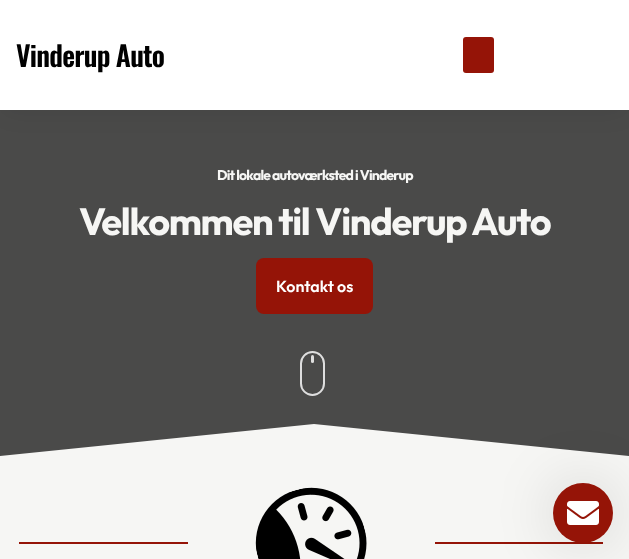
<!DOCTYPE html>
<meta charset="utf-8">
<style>body { margin: 0 } canvas { display: block }</style>
<canvas id="canvas" width="629" height="559"></canvas>
<script type="module">
  const canvas = document.getElementById("canvas");
  const ctx = canvas.getContext("2d");
  ctx.miterLimit = 4;
  ctx.fontKerning = "normal";
  async function loadImage(src) {
    const img = new Image();
    img.src = src;
    await img.decode();
    return img;
  }

  ctx.fillStyle = "#f6f6f4";
  ctx.fillRect(0, 0, 629, 559);
  ctx.fillStyle = "#4a4a49";
  ctx.fillRect(0, 110, 629, 346);
  ctx.fillStyle = "rgba(0, 0, 0, 0.09)";
  ctx.filter = "blur(13px)";
  ctx.beginPath();
  ctx.rect(5, 9, 619, 100);
  ctx.fill();
  ctx.filter = "none";
  ctx.fillStyle = "#ffffff";
  ctx.fillRect(0, 0, 629, 110);
  ctx.letterSpacing = "-0.8px";
  ctx.font = "600 28px Oswald";
  ctx.fillStyle = "#000000";
  ctx.fillText("Vinderup Auto", 16, 67);
  ctx.fillStyle = "#951407";
  ctx.beginPath();
  ctx.roundRect(463, 37, 31, 36, 3);
  ctx.fill();
  ctx.font = "bold 14px Outfit";
  ctx.fillStyle = "#f6f6f4";
  ctx.fillText("Dit lokale autoværksted i Vinderup", 217, 180);
  ctx.letterSpacing = "-1.3px";
  ctx.font = "bold 38px Outfit";
  ctx.fillText("Velkommen til Vinderup Auto", 79, 235);
  ctx.fillStyle = "#951407";
  ctx.beginPath();
  ctx.roundRect(256, 258, 117, 56, 8);
  ctx.fill();
  ctx.letterSpacing = "0px";
  ctx.font = "600 16px Outfit";
  ctx.fillStyle = "#ffffff";
  ctx.fillText("Kontakt os", 276, 292);
  ctx.fillStyle = "#f6f6f4";
  ctx.beginPath();
  ctx.moveTo(314, 424);
  ctx.lineTo(629, 456);
  ctx.lineTo(629, 459);
  ctx.lineTo(-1, 459);
  ctx.lineTo(-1, 456);
  ctx.closePath();
  ctx.fill();
  ctx.beginPath();
  ctx.roundRect(301, 352, 23, 43, 11.5);
  ctx.strokeStyle = "#dedede";
  ctx.lineWidth = 2;
  ctx.stroke();
  ctx.fillStyle = "#dedede";
  ctx.beginPath();
  ctx.roundRect(311, 355, 3, 8, 1.5);
  ctx.fill();
  ctx.fillStyle = "#951407";
  ctx.fillRect(19, 542, 169, 2);
  ctx.drawImage(await loadImage("img1.png"), 255, 487, 112, 72);
  ctx.fillRect(435, 542, 168, 2);
  ctx.fillStyle = "rgba(0, 0, 0, 0.15)";
  ctx.filter = "blur(30px)";
  ctx.beginPath();
  ctx.roundRect(553, 483, 60, 60, 30);
  ctx.fill();
  ctx.filter = "none";
  ctx.fillStyle = "#951407";
  ctx.beginPath();
  ctx.arc(583, 513, 30, 0, Math.PI * 2);
  ctx.fill();
  ctx.drawImage(await loadImage("img2.png"), 567, 501, 32, 24);
</script>
